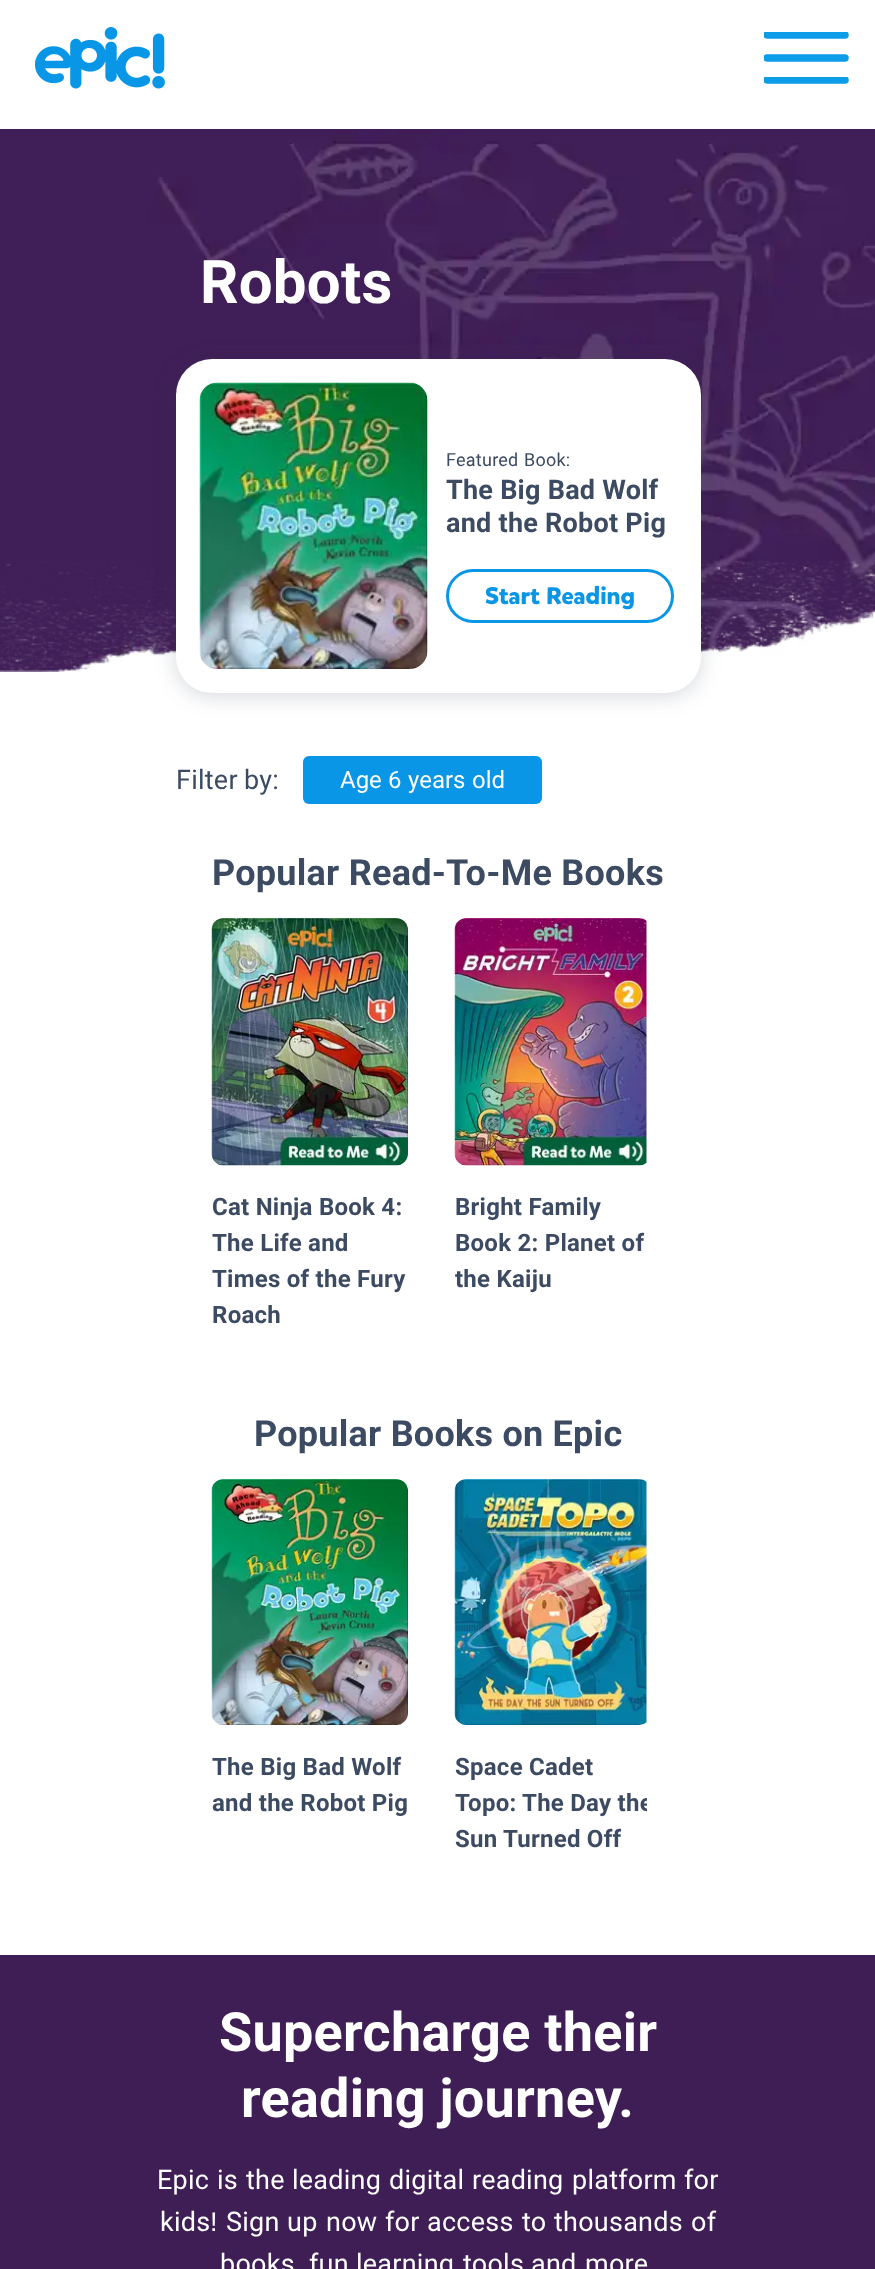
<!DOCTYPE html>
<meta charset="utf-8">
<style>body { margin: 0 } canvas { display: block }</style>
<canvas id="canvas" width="875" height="2269"></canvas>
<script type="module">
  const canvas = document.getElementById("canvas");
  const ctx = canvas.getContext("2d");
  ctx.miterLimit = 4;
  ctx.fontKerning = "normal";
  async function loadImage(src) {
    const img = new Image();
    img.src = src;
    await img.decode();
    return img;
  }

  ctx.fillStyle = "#ffffff";
  ctx.fillRect(0, 0, 875, 2269);
  ctx.drawImage(await loadImage("img1.png"), 34, 27, 131, 62);
  ctx.save();
  ctx.beginPath();
  ctx.rect(764, 32, 85, 7);
  ctx.clip();
  ctx.beginPath();
  ctx.moveTo(767, 35);
  ctx.lineTo(845, 35);
  ctx.strokeStyle = "#0d9ce7";
  ctx.lineWidth = 7.5;
  ctx.lineCap = "round";
  ctx.stroke();
  ctx.restore();
  ctx.save();
  ctx.beginPath();
  ctx.rect(764, 54, 85, 8);
  ctx.clip();
  ctx.beginPath();
  ctx.moveTo(767, 58);
  ctx.lineTo(845, 58);
  ctx.strokeStyle = "#0d9ce7";
  ctx.lineWidth = 7.5;
  ctx.lineCap = "round";
  ctx.stroke();
  ctx.restore();
  ctx.save();
  ctx.beginPath();
  ctx.rect(764, 77, 85, 7);
  ctx.clip();
  ctx.beginPath();
  ctx.moveTo(767, 80);
  ctx.lineTo(845, 80);
  ctx.strokeStyle = "#0d9ce7";
  ctx.lineWidth = 7.5;
  ctx.lineCap = "round";
  ctx.stroke();
  ctx.restore();
  ctx.drawImage(await loadImage("img2.png"), 0, 129, 875, 543);
  ctx.letterSpacing = "0.25px";
  ctx.font = "bold 60px Roboto";
  ctx.fillText("Robots", 200, 303);
  ctx.fillStyle = "rgba(44, 59, 86, 0.2)";
  ctx.filter = "blur(10.5px)";
  ctx.beginPath();
  ctx.roundRect(176, 362, 525, 334, 36);
  ctx.fill();
  ctx.filter = "none";
  ctx.fillStyle = "#ffffff";
  ctx.beginPath();
  ctx.roundRect(176, 359, 525, 334, 36);
  ctx.fill();
  ctx.drawImage(await loadImage("img3.png"), 199, 382, 229, 287);
  ctx.font = "18px Roboto";
  ctx.fillStyle = "#3c4b62";
  ctx.fillText("Featured", 446, 466);
  ctx.fillText("Book:", 524, 466);
  ctx.font = "bold 27px Roboto";
  ctx.fillText("The Big Bad Wolf", 446, 499);
  ctx.fillText("and the Robot Pig", 446, 532);
  ctx.beginPath();
  ctx.roundRect(447.5, 570.5, 225, 51, 25.5);
  ctx.strokeStyle = "#0a96e6";
  ctx.lineWidth = 3;
  ctx.stroke();
  ctx.letterSpacing = "0px";
  ctx.font = "bold 24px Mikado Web";
  ctx.fillStyle = "#0a96e6";
  ctx.fillText("Start", 485, 604);
  ctx.fillText("Reading", 546, 604);
  ctx.letterSpacing = "0.25px";
  ctx.font = "27px Roboto";
  ctx.fillStyle = "#3c4b62";
  ctx.fillText("Filter", 176, 789);
  ctx.fillText("by:", 244, 789);
  ctx.fillStyle = "#0a96e6";
  ctx.beginPath();
  ctx.roundRect(303, 756, 239, 48, 6);
  ctx.fill();
  ctx.letterSpacing = "0px";
  ctx.font = "24px Roboto";
  ctx.fillStyle = "#ffffff";
  ctx.fillText("Age", 340, 788);
  ctx.fillText("6", 388, 788);
  ctx.fillText("years", 408, 788);
  ctx.fillText("old", 472, 788);
  ctx.letterSpacing = "0.25px";
  ctx.font = "bold 36px Roboto";
  ctx.fillStyle = "#3c4b62";
  ctx.fillText("Popular Read-To-Me Books", 212, 885);
  ctx.drawImage(await loadImage("img4.png"), 211, 918, 197, 248);
  ctx.font = "bold 24px Roboto";
  ctx.fillText("Cat Ninja Book 4:", 212, 1215);
  ctx.fillText("The Life and", 212, 1251);
  ctx.fillText("Times of the Fury", 212, 1287);
  ctx.fillText("Roach", 212, 1323);
  ctx.drawImage(await loadImage("img5.png"), 454, 918, 193, 248);
  ctx.fillText("Bright Family", 455, 1215);
  ctx.fillText("Book 2: Planet of", 455, 1251);
  ctx.save();
  ctx.beginPath();
  ctx.rect(455, 1190, 192, 108);
  ctx.clip();
  ctx.fillText("the Kaiju", 455, 1287);
  ctx.restore();
  ctx.font = "bold 36px Roboto";
  ctx.fillText("Popular Books on Epic", 254, 1446);
  ctx.drawImage(await loadImage("img6.png"), 211, 1479, 197, 246);
  ctx.font = "bold 24px Roboto";
  ctx.fillText("The Big Bad Wolf", 212, 1775);
  ctx.fillText("and the Robot Pig", 212, 1811);
  ctx.drawImage(await loadImage("img7.png"), 454, 1479, 193, 246);
  ctx.fillText("Space Cadet", 455, 1775);
  ctx.save();
  ctx.beginPath();
  ctx.rect(455, 1749, 192, 108);
  ctx.clip();
  ctx.fillText("Topo: The Day the", 455, 1811);
  ctx.restore();
  ctx.fillText("Sun Turned Off", 455, 1847);
  ctx.fillStyle = "#3f1e56";
  ctx.fillRect(0, 1955, 875, 314);
  ctx.font = "bold 54px Roboto";
  ctx.fillStyle = "#ffffff";
  ctx.fillText("Supercharge their", 219, 2051);
  ctx.fillText("reading journey.", 241, 2117);
  ctx.font = "27px Roboto";
  ctx.fillText("Epic", 157, 2189);
  ctx.fillText("is", 217, 2189);
  ctx.fillText("the", 246, 2189);
  ctx.fillText("leading", 292, 2189);
  ctx.fillText("digital", 389, 2189);
  ctx.fillText("reading", 472, 2189);
  ctx.fillText("platform", 572, 2189);
  ctx.fillText("for", 684, 2189);
  ctx.fillText("kids", 160, 2231);
  ctx.font = "27px Liberation Sans";
  ctx.fillText("!", 210, 2231);
  ctx.font = "27px Roboto";
  ctx.fillText("Sign", 226, 2231);
  ctx.fillText("up", 287, 2231);
  ctx.fillText("now", 326, 2231);
  ctx.fillText("for", 385, 2231);
  ctx.fillText("access", 427, 2231);
  ctx.fillText("to", 522, 2231);
  ctx.fillText("thousands", 554, 2231);
  ctx.fillText("of", 691, 2231);
  ctx.fillText("books", 220, 2273);
  ctx.fillText("fun", 309, 2273);
  ctx.fillText("learning", 356, 2273);
  ctx.fillText("tools", 463, 2273);
  ctx.fillText("and", 531, 2273);
  ctx.fillText("more", 585, 2273);
</script>
